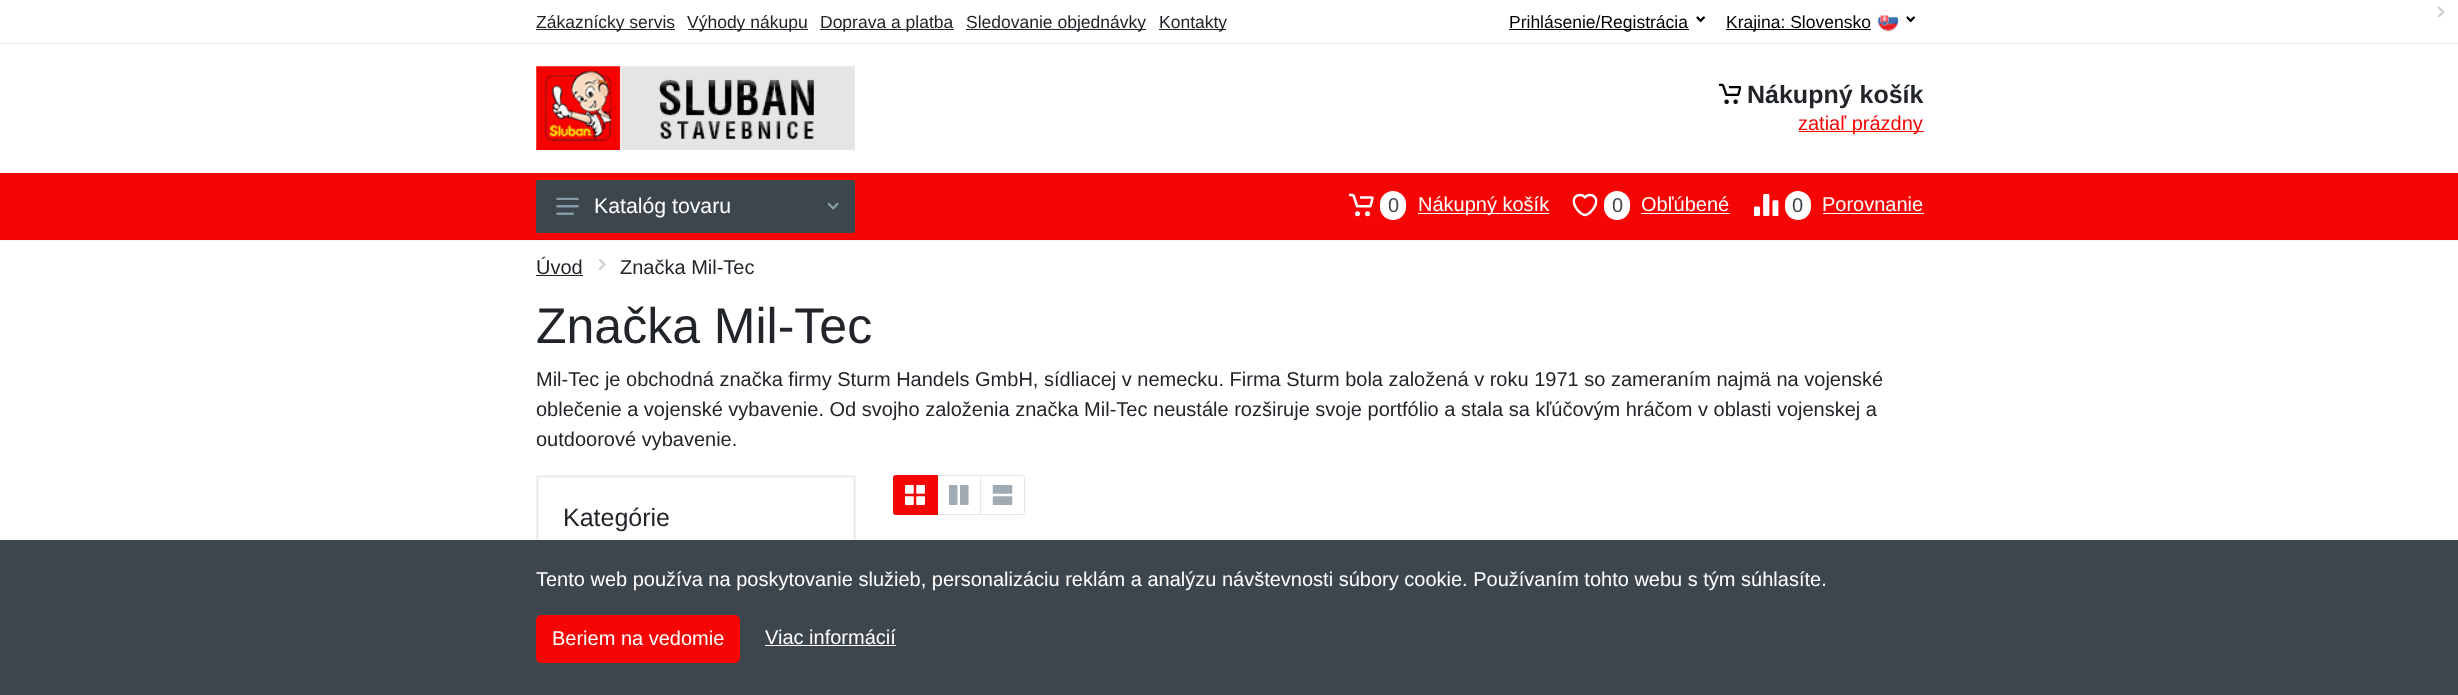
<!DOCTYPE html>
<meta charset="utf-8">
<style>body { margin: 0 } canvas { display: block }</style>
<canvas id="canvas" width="2458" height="695"></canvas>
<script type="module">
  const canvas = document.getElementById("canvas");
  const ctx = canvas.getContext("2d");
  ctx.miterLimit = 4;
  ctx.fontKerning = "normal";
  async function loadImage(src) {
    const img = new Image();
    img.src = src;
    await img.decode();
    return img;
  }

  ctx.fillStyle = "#ffffff";
  ctx.fillRect(0, 0, 2458, 695);
  ctx.drawImage(await loadImage("img10.png"), 2437, 6, 8, 12);
  ctx.strokeStyle = "#ebebeb";
  ctx.strokeRect(-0.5, -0.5, 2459, 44);
  ctx.fillStyle = "#212529";
  ctx.fillRect(536, 29, 139, 1);
  ctx.font = "17.5px Liberation Sans";
  ctx.fillText("Zákaznícky servis", 536, 28);
  ctx.fillRect(688, 29, 120, 1);
  ctx.fillText("Výhody nákupu", 687, 28);
  ctx.fillRect(820, 29, 134, 1);
  ctx.fillText("Doprava a platba", 820, 28);
  ctx.fillRect(966, 29, 180, 1);
  ctx.fillText("Sledovanie objednávky", 966, 28);
  ctx.fillRect(1159, 29, 67, 1);
  ctx.fillText("Kontakty", 1159, 28);
  ctx.fillStyle = "#000000";
  ctx.fillRect(1509, 29, 180, 1);
  ctx.fillText("Prihlásenie/Registrácia", 1509, 28);
  ctx.drawImage(await loadImage("img1.png"), 1696, 16, 9, 7);
  ctx.fillRect(1726, 29, 145, 1);
  ctx.fillText("Krajina: Slovensko", 1726, 28);
  ctx.drawImage(await loadImage("img2.png"), 1877, 10, 22, 22);
  ctx.drawImage(await loadImage("img1.png"), 1906, 16, 9, 7);
  ctx.drawImage(await loadImage("img3.png"), 536, 66, 319, 84);
  ctx.drawImage(await loadImage("img4.png"), 1719, 83, 22, 21);
  ctx.font = "bold 25px Liberation Sans";
  ctx.fillStyle = "#212529";
  ctx.fillText("Nákupný košík", 1747, 103);
  ctx.fillStyle = "#f50604";
  ctx.fillRect(1799, 131, 125, 1);
  ctx.font = "20px Liberation Sans";
  ctx.fillText("zatiaľ prázdny", 1798, 130);
  ctx.fillStyle = "#f5f5f5";
  ctx.beginPath();
  ctx.moveTo(0, 240);
  ctx.lineTo(0, 241);
  ctx.lineTo(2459, 241);
  ctx.lineTo(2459, 174);
  ctx.lineTo(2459, 240);
  ctx.closePath();
  ctx.fill();
  ctx.fillStyle = "#f50604";
  ctx.fillRect(0, 173, 2458, 66);
  ctx.fillStyle = "#eb0604";
  ctx.fillRect(0, 239, 2458, 1);
  ctx.fillStyle = "#3d464d";
  ctx.beginPath();
  ctx.roundRect(536, 180, 319, 53, 2.5);
  ctx.fill();
  ctx.drawImage(await loadImage("img5.png"), 556, 197, 23, 18);
  ctx.font = "21.25px Liberation Sans";
  ctx.fillStyle = "#ffffff";
  ctx.fillText("Katalóg tovaru", 594, 213);
  ctx.drawImage(await loadImage("img6.png"), 827, 202, 12, 8);
  ctx.drawImage(await loadImage("img7.png"), 1348, 193, 26, 24);
  ctx.beginPath();
  ctx.roundRect(1380, 191, 26, 29, 13);
  ctx.fill();
  ctx.font = "20px Liberation Sans";
  ctx.fillStyle = "#3d464d";
  ctx.fillText("0", 1388, 212);
  ctx.fillStyle = "#ffffff";
  ctx.fillRect(1418, 213, 131, 1);
  ctx.fillText("Nákupný košík", 1418, 211);
  ctx.drawImage(await loadImage("img8.png"), 1572, 193, 26, 24);
  ctx.beginPath();
  ctx.roundRect(1604, 191, 26, 29, 13);
  ctx.fill();
  ctx.fillStyle = "#3d464d";
  ctx.fillText("0", 1612, 212);
  ctx.fillStyle = "#ffffff";
  ctx.fillText("Obľúbené", 1641, 211);
  ctx.fillRect(1641, 213, 89, 1);
  ctx.drawImage(await loadImage("img9.png"), 1754, 194, 25, 22);
  ctx.beginPath();
  ctx.roundRect(1785, 191, 26, 29, 13);
  ctx.fill();
  ctx.fillStyle = "#3d464d";
  ctx.fillText("0", 1792, 212);
  ctx.fillStyle = "#ffffff";
  ctx.fillText("Porovnanie", 1822, 211);
  ctx.fillRect(1823, 213, 101, 1);
  ctx.fillStyle = "#212529";
  ctx.fillText("Úvod", 536, 274);
  ctx.fillRect(536, 275, 47, 1);
  ctx.drawImage(await loadImage("img11.png"), 599, 259, 7, 11);
  ctx.fillText("Značka Mil-Tec", 620, 274);
  ctx.font = "50px Liberation Sans";
  ctx.fillText("Značka Mil-Tec", 536, 343);
  ctx.font = "20px Liberation Sans";
  ctx.fillText("Mil-Tec je obchodná značka firmy Sturm Handels GmbH, sídliacej v nemecku. Firma Sturm bola založená v roku 1971 so zameraním najmä na vojenské", 536, 386);
  ctx.fillText("oblečenie a vojenské vybavenie. Od svojho založenia značka Mil-Tec neustále rozširuje svoje portfólio a stala sa kľúčovým hráčom v oblasti vojenskej a", 536, 416);
  ctx.fillText("outdoorové vybavenie.", 536, 446);
  ctx.strokeStyle = "#e5e5e5";
  ctx.strokeRect(936.5, 475.5, 44, 39);
  ctx.fillStyle = "#f50604";
  ctx.beginPath();
  ctx.roundRect(893.5, 475.5, 44, 39, [2, 0, 0, 2]);
  ctx.fill();
  ctx.strokeStyle = "#f50604";
  ctx.stroke();
  ctx.drawImage(await loadImage("img12.png"), 905, 485, 20, 20);
  ctx.drawImage(await loadImage("img13.png"), 948, 485, 21, 20);
  ctx.fillStyle = "#ffffff";
  ctx.beginPath();
  ctx.roundRect(980.5, 475.5, 44, 39, [0, 2, 2, 0]);
  ctx.fill();
  ctx.strokeStyle = "#e5e5e5";
  ctx.stroke();
  ctx.drawImage(await loadImage("img14.png"), 992, 485, 21, 20);
  ctx.fillStyle = "#f0f0f0";
  ctx.fillRect(538, 475, 316, 3);
  ctx.fillRect(853, 476, 3, 64);
  ctx.fillRect(536, 476, 3, 64);
  ctx.font = "25px Liberation Sans";
  ctx.fillStyle = "#212529";
  ctx.fillText("Kategórie", 563, 526);
  ctx.fillStyle = "#3d464d";
  ctx.fillRect(0, 540, 2458, 155);
  ctx.font = "20px Liberation Sans";
  ctx.fillStyle = "#ffffff";
  ctx.fillText("Tento web používa na poskytovanie služieb, personalizáciu reklám a analýzu návštevnosti súbory cookie. Používaním tohto webu s tým súhlasíte.", 536, 586);
  ctx.fillStyle = "#f50604";
  ctx.beginPath();
  ctx.roundRect(536.5, 615.5, 203, 47, 4.5);
  ctx.fill();
  ctx.strokeStyle = "#f50604";
  ctx.stroke();
  ctx.fillStyle = "#ffffff";
  ctx.fillText("Beriem na vedomie", 552, 645);
  ctx.fillText("Viac informácií", 765, 644);
  ctx.fillRect(765, 645, 131, 1);
</script>
